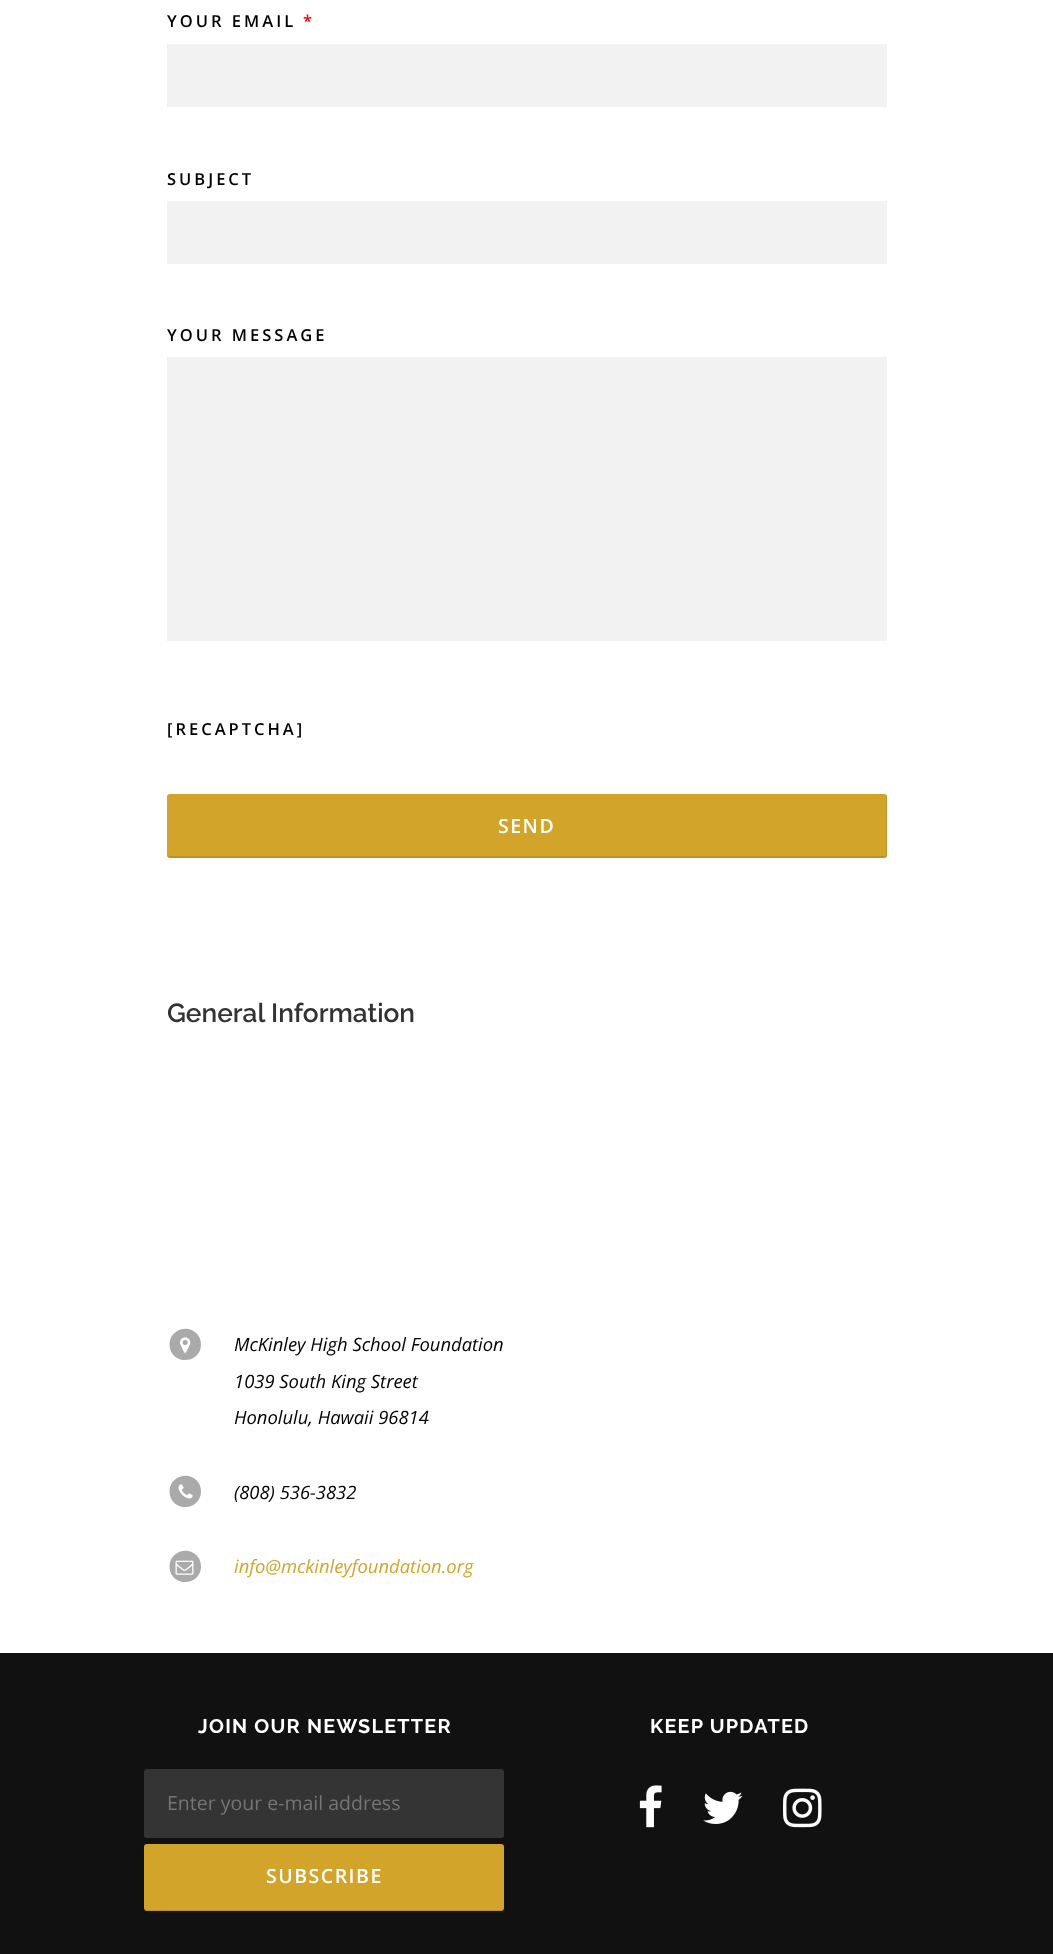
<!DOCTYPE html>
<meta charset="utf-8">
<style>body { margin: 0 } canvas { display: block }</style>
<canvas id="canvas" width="1053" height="1954"></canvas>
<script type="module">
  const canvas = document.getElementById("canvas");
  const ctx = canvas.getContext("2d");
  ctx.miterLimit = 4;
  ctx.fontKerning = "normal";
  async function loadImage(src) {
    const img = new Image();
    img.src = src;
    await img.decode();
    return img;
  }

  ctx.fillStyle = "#ffffff";
  ctx.fillRect(0, 0, 1053, 1954);
  ctx.letterSpacing = "3px";
  ctx.font = "600 16.5px Open Sans";
  ctx.fillStyle = "#000000";
  ctx.fillText("YOUR EMAIL", 167, 27);
  ctx.fillStyle = "#ff0000";
  ctx.fillText("*", 303, 27);
  ctx.fillStyle = "#f2f2f2";
  ctx.fillRect(167, 44, 720, 63);
  ctx.fillStyle = "#000000";
  ctx.fillText("SUBJECT", 167, 185);
  ctx.fillStyle = "#f2f2f2";
  ctx.fillRect(167, 201, 720, 63);
  ctx.fillStyle = "#000000";
  ctx.fillText("YOUR MESSAGE", 167, 341);
  ctx.fillStyle = "#f2f2f2";
  ctx.fillRect(167, 357, 720, 284);
  ctx.fillStyle = "#000000";
  ctx.fillText("[RECAPTCHA]", 167, 735);
  ctx.fillStyle = "#d2a42a";
  ctx.beginPath();
  ctx.roundRect(167, 794, 720, 64, 3);
  ctx.fill();
  ctx.fillStyle = "rgba(0, 0, 0, 0.1)";
  ctx.beginPath();
  ctx.moveTo(167, 855);
  ctx.bezierCurveTo(167, 857, 168, 858, 170, 858);
  ctx.lineTo(884, 858);
  ctx.bezierCurveTo(886, 858, 887, 857, 887, 855);
  ctx.lineTo(887, 797);
  ctx.bezierCurveTo(887, 796, 887, 795, 886, 795);
  ctx.lineTo(886, 854);
  ctx.bezierCurveTo(886, 855, 885, 856, 884, 856);
  ctx.lineTo(170, 856);
  ctx.closePath();
  ctx.fill();
  ctx.letterSpacing = "1.5px";
  ctx.font = "600 19.5px Open Sans";
  ctx.fillStyle = "#ffffff";
  ctx.fillText("SEND", 498, 833);
  ctx.letterSpacing = "0px";
  ctx.font = "600 26.25px Raleway";
  ctx.fillStyle = "#333333";
  ctx.fillText("General Information", 167, 1022);
  ctx.fillStyle = "#aaaaaa";
  ctx.beginPath();
  ctx.moveTo(199, 1336.5);
  ctx.bezierCurveTo(200.5, 1339, 201, 1342.5, 201, 1345.5);
  ctx.bezierCurveTo(200, 1361, 179.5, 1365.5, 171.5, 1352.5);
  ctx.bezierCurveTo(170, 1349.5, 169.5, 1346.5, 169.5, 1343.5);
  ctx.bezierCurveTo(170.5, 1328, 191, 1323, 199, 1336.5);
  ctx.closePath();
  ctx.fill();
  ctx.drawImage(await loadImage("img1.png"), 180, 1337, 11, 16);
  ctx.font = "italic 18.4px Open Sans";
  ctx.fillStyle = "#000000";
  ctx.fillText("McKinley High School Foundation", 234, 1351);
  ctx.fillText("1039 South King Street", 234, 1388);
  ctx.fillText("Honolulu, Hawaii 96814", 234, 1424);
  ctx.fillStyle = "#aaaaaa";
  ctx.beginPath();
  ctx.moveTo(199, 1483.5);
  ctx.bezierCurveTo(200.5, 1486, 201, 1489.5, 201, 1492.5);
  ctx.bezierCurveTo(200, 1508, 179.5, 1512.5, 171.5, 1499.5);
  ctx.bezierCurveTo(170, 1496.5, 169.5, 1493.5, 169.5, 1490.5);
  ctx.bezierCurveTo(170.5, 1475, 191, 1470, 199, 1483.5);
  ctx.closePath();
  ctx.fill();
  ctx.drawImage(await loadImage("img2.png"), 178, 1484, 15, 15);
  ctx.fillStyle = "#000000";
  ctx.fillText("(808) 536-3832", 234, 1499);
  ctx.fillStyle = "#aaaaaa";
  ctx.beginPath();
  ctx.moveTo(199, 1558.5);
  ctx.bezierCurveTo(200.5, 1561, 201, 1564.5, 201, 1567.5);
  ctx.bezierCurveTo(200, 1583, 179.5, 1587.5, 171.5, 1574.5);
  ctx.bezierCurveTo(170, 1571.5, 169.5, 1568.5, 169.5, 1565.5);
  ctx.bezierCurveTo(170.5, 1550, 191, 1545, 199, 1558.5);
  ctx.closePath();
  ctx.fill();
  ctx.drawImage(await loadImage("img3.png"), 175, 1560, 19, 15);
  ctx.fillStyle = "#d2a42a";
  ctx.fillText("info@mckinleyfoundation.org", 234, 1573);
  ctx.fillStyle = "#111111";
  ctx.fillRect(0, 1653, 1053, 301);
  ctx.letterSpacing = "1.25px";
  ctx.font = "bold 19.75px Raleway";
  ctx.fillStyle = "#ffffff";
  ctx.fillText("JOIN OUR NEWSLETTER", 198, 1733);
  ctx.fillStyle = "#343434";
  ctx.beginPath();
  ctx.roundRect(144, 1769, 360, 69, 3);
  ctx.fill();
  ctx.letterSpacing = "0px";
  ctx.font = "19.5px Open Sans";
  ctx.fillStyle = "#757575";
  ctx.fillText("Enter your e-mail address", 167, 1810);
  ctx.fillStyle = "#d2a42a";
  ctx.beginPath();
  ctx.roundRect(144, 1844, 360, 67, 3);
  ctx.fill();
  ctx.fillStyle = "rgba(0, 0, 0, 0.1)";
  ctx.beginPath();
  ctx.moveTo(144, 1906);
  ctx.lineTo(144, 1908);
  ctx.bezierCurveTo(144, 1910, 145, 1911, 147, 1911);
  ctx.lineTo(501, 1911);
  ctx.bezierCurveTo(503, 1911, 504, 1910, 504, 1908);
  ctx.lineTo(504, 1906);
  ctx.bezierCurveTo(504, 1908, 503, 1910, 501, 1910);
  ctx.lineTo(147, 1910);
  ctx.bezierCurveTo(145, 1910, 144, 1908, 144, 1906);
  ctx.closePath();
  ctx.fill();
  ctx.letterSpacing = "1.5px";
  ctx.font = "600 19.5px Open Sans";
  ctx.fillStyle = "#ffffff";
  ctx.fillText("SUBSCRIBE", 266, 1883);
  ctx.letterSpacing = "1.25px";
  ctx.font = "bold 19.75px Raleway";
  ctx.fillText("KEEP UPDATED", 650, 1733);
  ctx.drawImage(await loadImage("img4.png"), 639, 1785, 23, 43);
  ctx.drawImage(await loadImage("img5.png"), 703, 1791, 40, 33);
  ctx.drawImage(await loadImage("img6.png"), 783, 1788, 39, 40);
</script>
